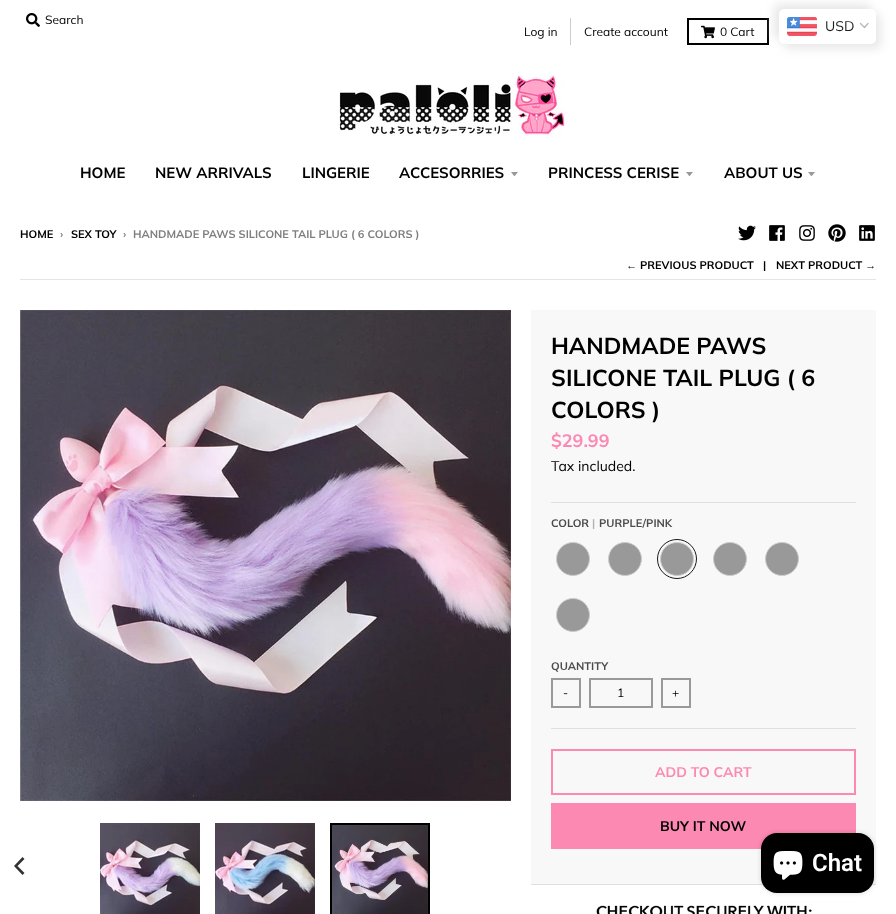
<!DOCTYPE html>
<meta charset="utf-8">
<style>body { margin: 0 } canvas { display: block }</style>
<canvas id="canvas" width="896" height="914"></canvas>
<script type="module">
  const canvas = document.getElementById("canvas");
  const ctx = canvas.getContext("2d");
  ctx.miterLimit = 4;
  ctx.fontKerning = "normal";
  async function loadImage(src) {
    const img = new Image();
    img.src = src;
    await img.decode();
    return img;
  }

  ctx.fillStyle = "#ffffff";
  ctx.fillRect(0, 0, 896, 914);
  ctx.drawImage(await loadImage("img1.png"), 26, 13, 14, 14);
  ctx.font = "12px Muli";
  ctx.fillStyle = "#000000";
  ctx.fillText("Search", 45, 24);
  ctx.fillStyle = "#cccccc";
  ctx.fillRect(570, 18, 1, 27);
  ctx.fillStyle = "#000000";
  ctx.fillText("Log in", 524, 36);
  ctx.fillText("Create account", 584, 36);
  ctx.strokeStyle = "#000000";
  ctx.lineWidth = 2;
  ctx.strokeRect(688, 19, 80, 25);
  ctx.drawImage(await loadImage("img2.png"), 701, 25, 14, 14);
  ctx.fillText("0 Cart", 720, 36);
  ctx.fillStyle = "#e8e8e8";
  ctx.filter = "blur(5px)";
  ctx.beginPath();
  ctx.roundRect(774, 4, 97, 35, 5);
  ctx.fill();
  ctx.filter = "none";
  ctx.filter = "blur(5px)";
  ctx.beginPath();
  ctx.roundRect(784, 14, 97, 35, 5);
  ctx.fill();
  ctx.filter = "none";
  ctx.fillStyle = "#ffffff";
  ctx.beginPath();
  ctx.roundRect(779, 9, 97, 35, 5);
  ctx.fill();
  ctx.drawImage(await loadImage("img3.png"), 787, 17, 30, 19);
  ctx.font = "14px Muli";
  ctx.fillStyle = "#1e1e1e";
  ctx.fillText("USD", 825, 31);
  ctx.beginPath();
  ctx.moveTo(860.5, 23.5);
  ctx.lineTo(864.5, 27.5);
  ctx.lineTo(868, 23.5);
  ctx.strokeStyle = "#b7b7b7";
  ctx.lineWidth = 1.3;
  ctx.lineCap = "round";
  ctx.lineJoin = "round";
  ctx.stroke();
  ctx.drawImage(await loadImage("img4.png"), 339, 72, 226, 64);
  ctx.font = "bold 15px Muli";
  ctx.fillStyle = "#000000";
  ctx.fillText("HOME", 80, 178);
  ctx.fillText("NEW ARRIVALS", 155, 178);
  ctx.fillText("LINGERIE", 302, 178);
  ctx.fillText("ACCESORRIES", 399, 178);
  ctx.fillStyle = "#999999";
  ctx.beginPath();
  ctx.moveTo(511, 172);
  ctx.bezierCurveTo(515.5, 177.5, 513.5, 177.5, 518, 172);
  ctx.closePath();
  ctx.fill();
  ctx.fillStyle = "#000000";
  ctx.fillText("PRINCESS CERISE", 548, 178);
  ctx.fillStyle = "#999999";
  ctx.beginPath();
  ctx.moveTo(686, 172);
  ctx.bezierCurveTo(690.5, 177.5, 688.5, 177.5, 693, 172);
  ctx.closePath();
  ctx.fill();
  ctx.fillStyle = "#000000";
  ctx.fillText("ABOUT US", 724, 178);
  ctx.fillStyle = "#999999";
  ctx.beginPath();
  ctx.moveTo(808, 172);
  ctx.bezierCurveTo(812.5, 177.5, 810.5, 177.5, 815, 172);
  ctx.closePath();
  ctx.fill();
  ctx.font = "bold 11px Muli";
  ctx.fillStyle = "#000000";
  ctx.fillText("HOME", 20, 238);
  ctx.fillStyle = "#7f7f7f";
  ctx.fillText("›", 60, 238);
  ctx.fillStyle = "#000000";
  ctx.fillText("SEX TOY", 71, 238);
  ctx.fillStyle = "#7f7f7f";
  ctx.fillText("›", 123, 238);
  ctx.fillText("HANDMADE PAWS SILICONE TAIL PLUG ( 6 COLORS )", 133, 238);
  ctx.drawImage(await loadImage("img5.png"), 738, 225, 18, 16);
  ctx.drawImage(await loadImage("img6.png"), 769, 225, 16, 16);
  ctx.drawImage(await loadImage("img7.png"), 799, 225, 16, 16);
  ctx.drawImage(await loadImage("img8.png"), 828, 224, 18, 18);
  ctx.drawImage(await loadImage("img9.png"), 859, 225, 16, 16);
  ctx.fillStyle = "#e5e5e5";
  ctx.fillRect(20, 279, 856, 1);
  ctx.font = "bold 11px Liberation Sans";
  ctx.fillStyle = "#000000";
  ctx.fillText("←", 626, 269);
  ctx.font = "bold 11px Muli";
  ctx.fillText("PREVIOUS PRODUCT", 640, 269);
  ctx.fillText("|", 763, 269);
  ctx.fillText("NEXT PRODUCT", 776, 269);
  ctx.font = "bold 11px Liberation Sans";
  ctx.fillText("→", 865, 269);
  ctx.drawImage(await loadImage("img10.png"), 20, 310, 491, 491);
  ctx.fillStyle = "#333333";
  ctx.beginPath();
  ctx.moveTo(14, 866);
  ctx.lineTo(22.5, 875);
  ctx.lineTo(24.5, 873);
  ctx.lineTo(17.5, 866);
  ctx.lineTo(24.5, 859);
  ctx.lineTo(22.5, 857);
  ctx.closePath();
  ctx.fill();
  ctx.drawImage(await loadImage("img11.png"), 100, 823, 100, 91);
  ctx.drawImage(await loadImage("img12.png"), 215, 823, 100, 91);
  ctx.strokeStyle = "#000000";
  ctx.lineWidth = 2;
  ctx.lineJoin = "miter";
  ctx.strokeRect(331, 824, 98, 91);
  ctx.drawImage(await loadImage("img13.png"), 332, 825, 96, 89);
  ctx.fillStyle = "#f8f8f8";
  ctx.fillRect(531, 310, 345, 574);
  ctx.fillStyle = "#dfdfdf";
  ctx.fillRect(531, 884, 345, 1);
  ctx.font = "bold 23.1px Muli";
  ctx.fillStyle = "#000000";
  ctx.fillText("HANDMADE PAWS", 551, 354);
  ctx.fillText("SILICONE TAIL PLUG ( 6", 551, 386);
  ctx.fillText("COLORS )", 551, 418);
  ctx.fillStyle = "#dfdfdf";
  ctx.fillRect(551, 502, 305, 1);
  ctx.font = "bold 18px Muli";
  ctx.fillStyle = "#fc89b2";
  ctx.fillText("$29.99", 551, 447);
  ctx.font = "14px Muli";
  ctx.fillStyle = "#000000";
  ctx.fillText("Tax included.", 551, 471);
  ctx.fillStyle = "#dfdfdf";
  ctx.fillRect(551, 728, 305, 1);
  ctx.font = "bold 11px Muli";
  ctx.fillStyle = "#4c4c4c";
  ctx.fillText("COLOR", 551, 527);
  ctx.fillStyle = "#b2b2b2";
  ctx.fillText("|", 592, 527);
  ctx.fillStyle = "#4c4c4c";
  ctx.fillText("PURPLE/PINK", 599, 527);
  ctx.fillStyle = "#999999";
  ctx.beginPath();
  ctx.arc(573, 559, 16.5, 0, Math.PI * 2);
  ctx.fill();
  ctx.strokeStyle = "#cccccc";
  ctx.lineWidth = 1;
  ctx.stroke();
  ctx.beginPath();
  ctx.arc(625, 559, 16.5, 0, Math.PI * 2);
  ctx.fill();
  ctx.stroke();
  ctx.beginPath();
  ctx.arc(677, 559, 19.5, 0, Math.PI * 2);
  ctx.strokeStyle = "#191919";
  ctx.stroke();
  ctx.beginPath();
  ctx.arc(677, 559, 16.5, 0, Math.PI * 2);
  ctx.fill();
  ctx.strokeStyle = "#cccccc";
  ctx.stroke();
  ctx.beginPath();
  ctx.arc(730, 559, 16.5, 0, Math.PI * 2);
  ctx.fill();
  ctx.stroke();
  ctx.beginPath();
  ctx.arc(782, 559, 16.5, 0, Math.PI * 2);
  ctx.fill();
  ctx.stroke();
  ctx.beginPath();
  ctx.arc(573, 615, 16.5, 0, Math.PI * 2);
  ctx.fill();
  ctx.stroke();
  ctx.fillStyle = "#4c4c4c";
  ctx.fillText("QUANTITY", 551, 670);
  ctx.strokeStyle = "#999999";
  ctx.lineWidth = 2;
  ctx.strokeRect(552, 679, 28, 28);
  ctx.font = "12px Muli";
  ctx.fillStyle = "#000000";
  ctx.fillText("-", 563, 697);
  ctx.strokeRect(590, 679, 62, 28);
  ctx.fillText("1", 617, 697);
  ctx.strokeRect(662, 679, 28, 28);
  ctx.fillText("+", 672, 697);
  ctx.strokeStyle = "#fc89b2";
  ctx.strokeRect(552, 750, 303, 44);
  ctx.font = "bold 14px Muli";
  ctx.fillStyle = "#fc89b2";
  ctx.fillText("ADD TO CART", 655, 777);
  ctx.fillRect(551, 803, 305, 46);
  ctx.fillStyle = "#000000";
  ctx.fillText("BUY IT NOW", 660, 831);
  ctx.drawImage(await loadImage("img14.png"), 596, 905, 216, 9);
  ctx.fillStyle = "rgba(0, 0, 0, 0.15)";
  ctx.filter = "blur(2.5px)";
  ctx.beginPath();
  ctx.roundRect(761, 833, 113, 60, 16);
  ctx.fill();
  ctx.filter = "none";
  ctx.fillStyle = "#000000";
  ctx.beginPath();
  ctx.roundRect(761, 833, 113, 60, 16);
  ctx.fill();
  ctx.drawImage(await loadImage("img15.png"), 773, 851, 30, 29);
  ctx.font = "600 24px Roboto";
  ctx.fillStyle = "#ffffff";
  ctx.fillText("Chat", 812, 871);
</script>
